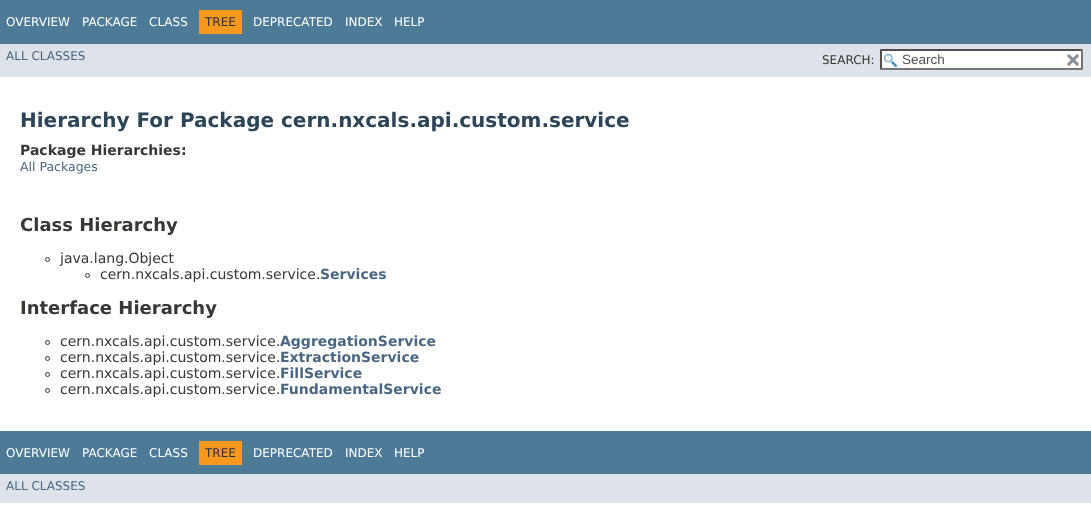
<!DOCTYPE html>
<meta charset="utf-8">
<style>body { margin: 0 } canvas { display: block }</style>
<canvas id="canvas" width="1091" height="507"></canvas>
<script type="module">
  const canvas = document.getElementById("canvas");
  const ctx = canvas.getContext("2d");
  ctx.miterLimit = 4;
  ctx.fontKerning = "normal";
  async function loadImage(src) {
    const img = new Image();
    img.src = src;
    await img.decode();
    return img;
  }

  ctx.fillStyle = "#ffffff";
  ctx.fillRect(0, 0, 1091, 507);
  ctx.fillStyle = "#4d7a97";
  ctx.fillRect(0, 0, 1091, 44);
  ctx.font = "12px DejaVu Sans";
  ctx.fillStyle = "#ffffff";
  ctx.fillText("OVERVIEW", 6, 26);
  ctx.fillText("PACKAGE", 82, 26);
  ctx.fillText("CLASS", 149, 26);
  ctx.fillStyle = "#f8981d";
  ctx.fillRect(199, 10, 43, 24);
  ctx.fillStyle = "#253441";
  ctx.fillText("TREE", 205, 26);
  ctx.fillStyle = "#ffffff";
  ctx.fillText("DEPRECATED", 253, 26);
  ctx.fillText("INDEX", 345, 26);
  ctx.fillText("HELP", 394, 26);
  ctx.fillStyle = "#dee3e9";
  ctx.fillRect(0, 44, 1091, 33);
  ctx.fillStyle = "#4a6782";
  ctx.fillText("ALL CLASSES", 6, 60);
  ctx.fillStyle = "#353833";
  ctx.fillText("SEARCH:", 822, 64);
  ctx.fillStyle = "#ffffff";
  ctx.fillRect(880, 49, 203, 21);
  ctx.drawImage(await loadImage("img1.png"), 884, 54, 13, 13);
  ctx.fillStyle = "#4f4f4f";
  ctx.beginPath();
  ctx.moveTo(880, 49);
  ctx.lineTo(1083, 49);
  ctx.lineTo(1081, 51);
  ctx.lineTo(882, 51);
  ctx.closePath();
  ctx.fill();
  ctx.fillStyle = "#767676";
  ctx.beginPath();
  ctx.moveTo(1083, 49);
  ctx.lineTo(1083, 70);
  ctx.lineTo(1081, 68);
  ctx.lineTo(1081, 51);
  ctx.closePath();
  ctx.fill();
  ctx.beginPath();
  ctx.moveTo(1083, 70);
  ctx.lineTo(880, 70);
  ctx.lineTo(882, 68);
  ctx.lineTo(1081, 68);
  ctx.closePath();
  ctx.fill();
  ctx.fillStyle = "#4f4f4f";
  ctx.beginPath();
  ctx.moveTo(880, 70);
  ctx.lineTo(880, 49);
  ctx.lineTo(882, 51);
  ctx.lineTo(882, 68);
  ctx.closePath();
  ctx.fill();
  ctx.font = "13.5px Liberation Sans";
  ctx.fillStyle = "#545454";
  ctx.fillText("Search", 902, 64);
  ctx.drawImage(await loadImage("img2.png"), 1066, 54, 14, 12);
  ctx.font = "bold 20px DejaVu Sans";
  ctx.fillStyle = "#2c4557";
  ctx.fillText("Hierarchy For Package cern.nxcals.api.custom.service", 20, 127);
  ctx.font = "bold 14px DejaVu Sans";
  ctx.fillStyle = "#353833";
  ctx.fillText("Package Hierarchies:", 20, 155);
  ctx.font = "12.5px DejaVu Sans";
  ctx.fillStyle = "#4a6782";
  ctx.fillText("All Packages", 20, 171);
  ctx.font = "bold 18px DejaVu Sans";
  ctx.fillStyle = "#353833";
  ctx.fillText("Class Hierarchy", 20, 231);
  ctx.beginPath();
  ctx.arc(47.5, 259.5, 2, 0, Math.PI * 2);
  ctx.strokeStyle = "#353833";
  ctx.stroke();
  ctx.font = "14px DejaVu Sans";
  ctx.fillText("java.lang.Object", 60, 263);
  ctx.beginPath();
  ctx.arc(87.5, 275.5, 2, 0, Math.PI * 2);
  ctx.stroke();
  ctx.fillText("cern.nxcals.api.custom.service.", 100, 279);
  ctx.font = "bold 14px DejaVu Sans";
  ctx.fillStyle = "#4a6782";
  ctx.fillText("Services", 320, 279);
  ctx.font = "bold 18px DejaVu Sans";
  ctx.fillStyle = "#353833";
  ctx.fillText("Interface Hierarchy", 20, 314);
  ctx.beginPath();
  ctx.arc(47.5, 342.5, 2, 0, Math.PI * 2);
  ctx.stroke();
  ctx.font = "14px DejaVu Sans";
  ctx.fillText("cern.nxcals.api.custom.service.", 60, 346);
  ctx.font = "bold 14px DejaVu Sans";
  ctx.fillStyle = "#4a6782";
  ctx.fillText("AggregationService", 280, 346);
  ctx.beginPath();
  ctx.arc(47.5, 358.5, 2, 0, Math.PI * 2);
  ctx.stroke();
  ctx.font = "14px DejaVu Sans";
  ctx.fillStyle = "#353833";
  ctx.fillText("cern.nxcals.api.custom.service.", 60, 362);
  ctx.font = "bold 14px DejaVu Sans";
  ctx.fillStyle = "#4a6782";
  ctx.fillText("ExtractionService", 280, 362);
  ctx.beginPath();
  ctx.arc(47.5, 374.5, 2, 0, Math.PI * 2);
  ctx.stroke();
  ctx.font = "14px DejaVu Sans";
  ctx.fillStyle = "#353833";
  ctx.fillText("cern.nxcals.api.custom.service.", 60, 378);
  ctx.font = "bold 14px DejaVu Sans";
  ctx.fillStyle = "#4a6782";
  ctx.fillText("FillService", 280, 378);
  ctx.beginPath();
  ctx.arc(47.5, 390.5, 2, 0, Math.PI * 2);
  ctx.stroke();
  ctx.font = "14px DejaVu Sans";
  ctx.fillStyle = "#353833";
  ctx.fillText("cern.nxcals.api.custom.service.", 60, 394);
  ctx.font = "bold 14px DejaVu Sans";
  ctx.fillStyle = "#4a6782";
  ctx.fillText("FundamentalService", 280, 394);
  ctx.fillStyle = "#4d7a97";
  ctx.fillRect(0, 431, 1091, 43);
  ctx.font = "12px DejaVu Sans";
  ctx.fillStyle = "#ffffff";
  ctx.fillText("OVERVIEW", 6, 457);
  ctx.fillText("PACKAGE", 82, 457);
  ctx.fillText("CLASS", 149, 457);
  ctx.fillStyle = "#f8981d";
  ctx.fillRect(199, 441, 43, 24);
  ctx.fillStyle = "#253441";
  ctx.fillText("TREE", 205, 457);
  ctx.fillStyle = "#ffffff";
  ctx.fillText("DEPRECATED", 253, 457);
  ctx.fillText("INDEX", 345, 457);
  ctx.fillText("HELP", 394, 457);
  ctx.fillStyle = "#dee3e9";
  ctx.fillRect(0, 474, 1091, 29);
  ctx.fillStyle = "#4a6782";
  ctx.fillText("ALL CLASSES", 6, 490);
</script>
